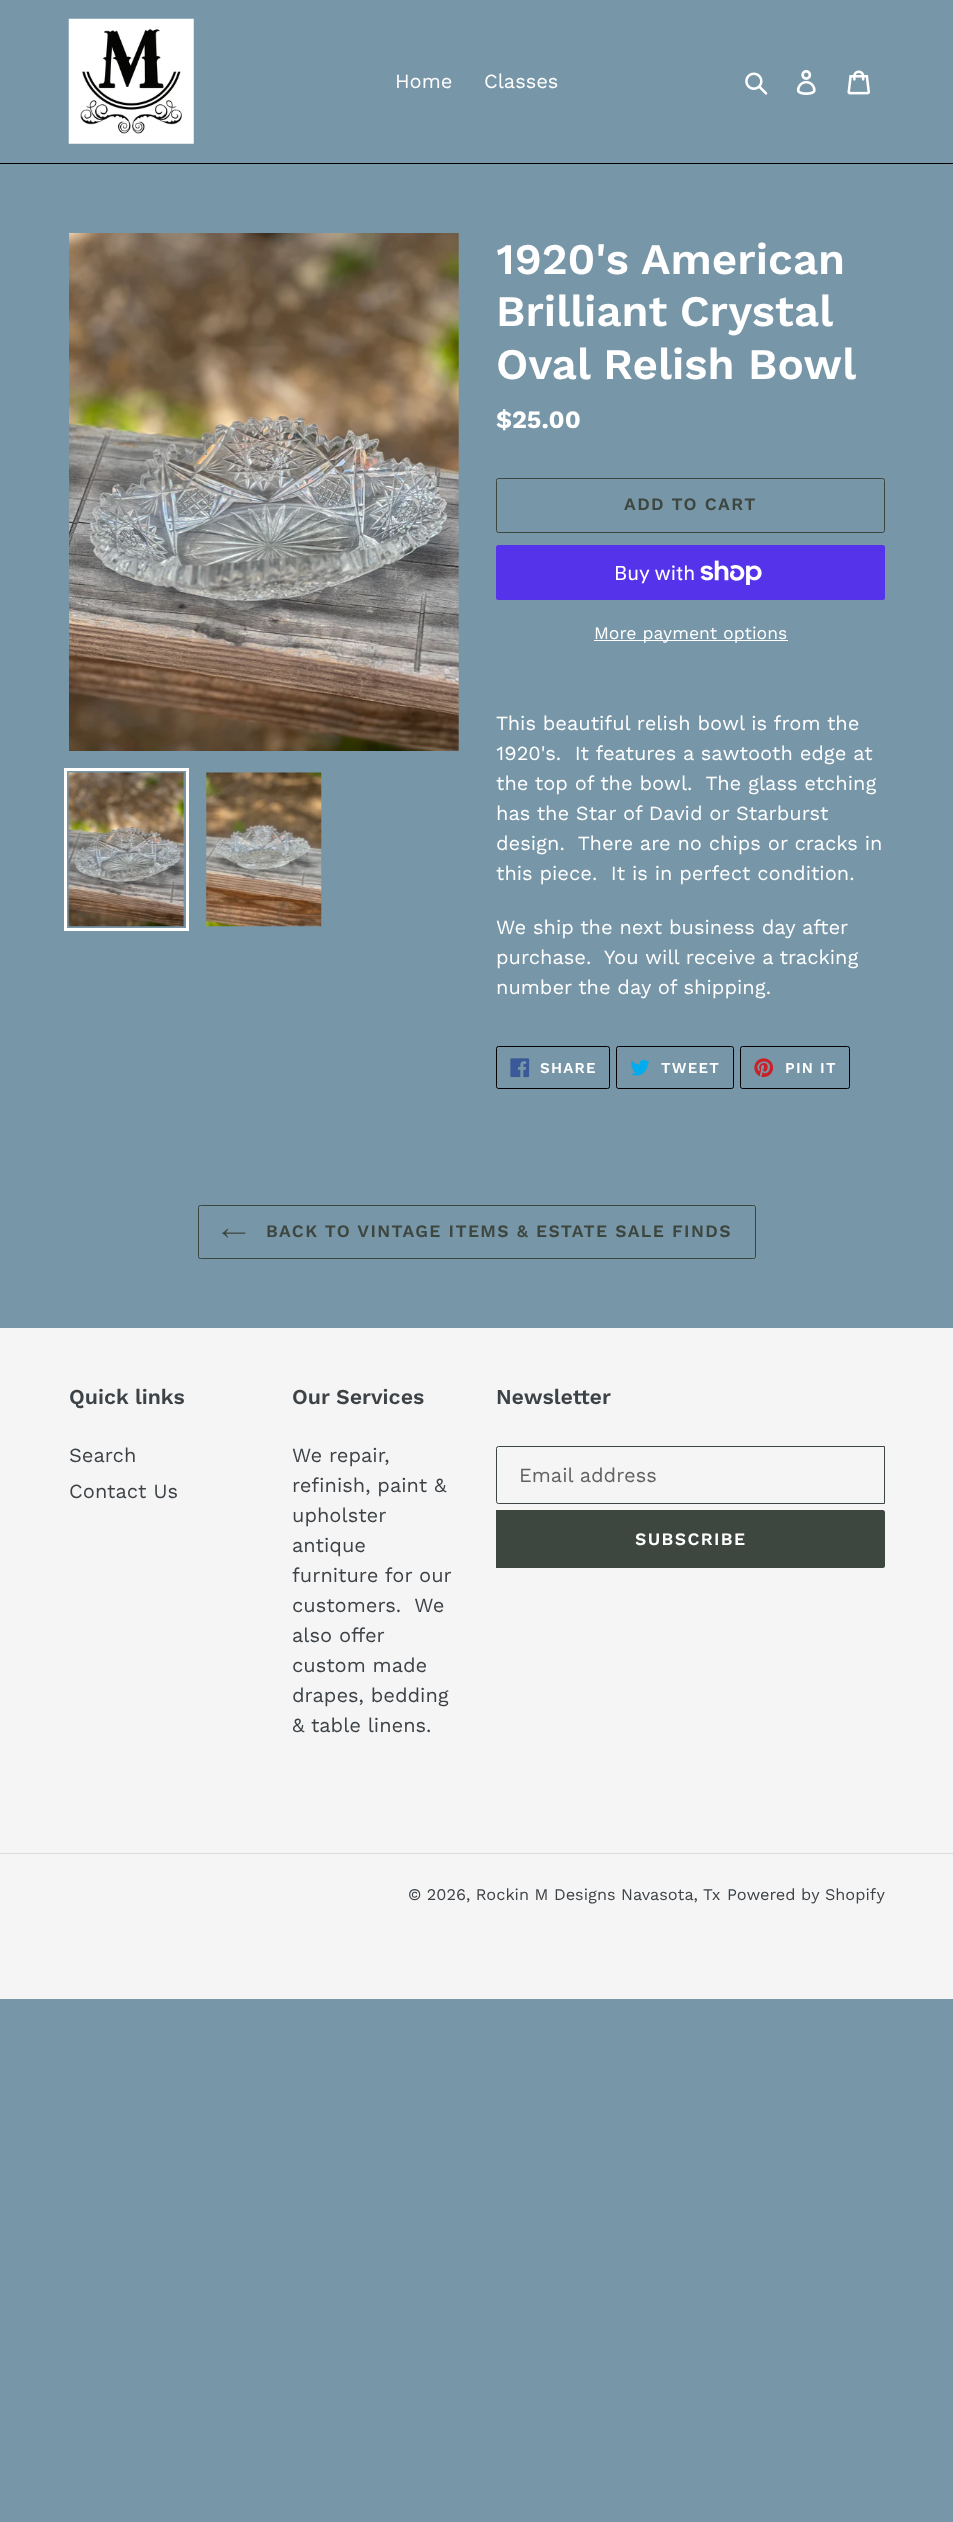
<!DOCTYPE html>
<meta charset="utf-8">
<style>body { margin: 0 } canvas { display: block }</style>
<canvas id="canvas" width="953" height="2522"></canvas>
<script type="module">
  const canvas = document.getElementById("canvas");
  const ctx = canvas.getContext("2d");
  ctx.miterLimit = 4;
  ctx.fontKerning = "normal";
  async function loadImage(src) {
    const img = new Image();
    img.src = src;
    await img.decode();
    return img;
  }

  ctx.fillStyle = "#7796a8";
  ctx.fillRect(0, 0, 953, 2522);
  ctx.fillStyle = "#000000";
  ctx.fillRect(0, 163, 953, 1);
  ctx.drawImage(await loadImage("img1.png"), 68, 18, 126, 126);
  ctx.font = "20px Work Sans";
  ctx.fillStyle = "#ffffff";
  ctx.fillText("Home", 395, 88);
  ctx.fillText("Classes", 484, 88);
  ctx.drawImage(await loadImage("img2.png"), 745, 72, 23, 23);
  ctx.drawImage(await loadImage("img3.png"), 796, 70, 20, 25);
  ctx.drawImage(await loadImage("img4.png"), 847, 70, 23, 25);
  ctx.drawImage(await loadImage("img5.png"), 69, 233, 390, 518);
  ctx.strokeStyle = "#ffffff";
  ctx.lineWidth = 3;
  ctx.strokeRect(65.5, 769.5, 122, 160);
  ctx.drawImage(await loadImage("img6.png"), 68, 772, 117, 155);
  ctx.drawImage(await loadImage("img7.png"), 206, 772, 116, 155);
  ctx.font = "600 43.75px Work Sans";
  ctx.fillText("1920's American", 496, 274);
  ctx.wordSpacing = "-1px";
  ctx.fillText("Brilliant Crystal", 496, 326);
  ctx.wordSpacing = "0px";
  ctx.fillText("Oval Relish Bowl", 496, 379);
  ctx.font = "bold 25px Work Sans";
  ctx.fillText("$25.00", 496, 428);
  ctx.beginPath();
  ctx.roundRect(496.5, 478.5, 388, 54, 2);
  ctx.strokeStyle = "#3d463f";
  ctx.lineWidth = 1;
  ctx.stroke();
  ctx.letterSpacing = "1.4px";
  ctx.font = "600 17.5px Work Sans";
  ctx.fillStyle = "#3d463f";
  ctx.fillText("ADD TO CART", 624, 510);
  ctx.fillStyle = "#5433eb";
  ctx.beginPath();
  ctx.roundRect(496, 545, 389, 55, 2.5);
  ctx.fill();
  ctx.letterSpacing = "0px";
  ctx.font = "20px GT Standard";
  ctx.fillStyle = "#ffffff";
  ctx.fillText("Buy with", 614, 580);
  ctx.drawImage(await loadImage("img8.png"), 700, 560, 62, 25);
  ctx.fillRect(594, 640, 194, 1);
  ctx.font = "17.5px Work Sans";
  ctx.fillText("More payment options", 594, 639);
  ctx.font = "20px Work Sans";
  ctx.fillText("This beautiful relish bowl is from the", 496, 730);
  ctx.fillText("1920's.  It features a sawtooth edge at", 496, 760);
  ctx.fillText("the top of the bowl.  The glass etching", 496, 790);
  ctx.fillText("has the Star of David or Starburst", 496, 820);
  ctx.fillText("design.  There are no chips or cracks in", 496, 850);
  ctx.fillText("this piece.  It is in perfect condition.", 496, 880);
  ctx.fillText("We ship the next business day after", 496, 934);
  ctx.fillText("purchase.  You will receive a tracking", 496, 964);
  ctx.fillText("number the day of shipping.", 496, 994);
  ctx.beginPath();
  ctx.roundRect(496.5, 1046.5, 113, 42, 2);
  ctx.strokeStyle = "#000000";
  ctx.stroke();
  ctx.drawImage(await loadImage("img9.png"), 510, 1058, 20, 20);
  ctx.letterSpacing = "1.25px";
  ctx.font = "600 15px Work Sans";
  ctx.fillText("SHARE", 540, 1073);
  ctx.beginPath();
  ctx.roundRect(616.5, 1046.5, 117, 42, 2);
  ctx.stroke();
  ctx.drawImage(await loadImage("img10.png"), 630, 1059, 20, 17);
  ctx.fillText("TWEET", 661, 1073);
  ctx.beginPath();
  ctx.roundRect(740.5, 1046.5, 109, 42, 2);
  ctx.stroke();
  ctx.drawImage(await loadImage("img11.png"), 754, 1058, 20, 19);
  ctx.fillText("PIN IT", 785, 1073);
  ctx.beginPath();
  ctx.roundRect(198.5, 1205.5, 557, 53, 2);
  ctx.strokeStyle = "#3d463f";
  ctx.stroke();
  ctx.drawImage(await loadImage("img12.png"), 222, 1228, 24, 10);
  ctx.letterSpacing = "1.4px";
  ctx.font = "600 17.5px Work Sans";
  ctx.fillStyle = "#3d463f";
  ctx.fillText("BACK TO VINTAGE ITEMS & ESTATE SALE FINDS", 266, 1237);
  ctx.fillStyle = "#f5f5f5";
  ctx.fillRect(0, 1328, 953, 671);
  ctx.letterSpacing = "0px";
  ctx.font = "600 21.25px Work Sans";
  ctx.fillStyle = "#3d4246";
  ctx.fillText("Quick links", 69, 1404);
  ctx.font = "20px Work Sans";
  ctx.fillText("Search", 69, 1462);
  ctx.fillText("Contact Us", 69, 1498);
  ctx.font = "600 21.25px Work Sans";
  ctx.fillText("Our Services", 292, 1404);
  ctx.font = "20px Work Sans";
  ctx.fillText("We repair,", 292, 1462);
  ctx.fillText("refinish, paint &", 292, 1492);
  ctx.fillText("upholster", 292, 1522);
  ctx.fillText("antique", 292, 1552);
  ctx.fillText("furniture for our", 292, 1582);
  ctx.fillText("customers.  We", 292, 1612);
  ctx.fillText("also offer", 292, 1642);
  ctx.fillText("custom made", 292, 1672);
  ctx.fillText("drapes, bedding", 292, 1702);
  ctx.fillText("& table linens.", 292, 1732);
  ctx.font = "600 21.25px Work Sans";
  ctx.fillText("Newsletter", 496, 1404);
  ctx.beginPath();
  ctx.roundRect(496.5, 1446.5, 388, 57, [2, 0, 0, 2]);
  ctx.stroke();
  ctx.font = "20px Work Sans";
  ctx.fillStyle = "#626262";
  ctx.fillText("Email address", 519, 1482);
  ctx.fillStyle = "#3d463f";
  ctx.beginPath();
  ctx.roundRect(496, 1510, 389, 58, [0, 2.5, 2.5, 0]);
  ctx.fill();
  ctx.letterSpacing = "1.4px";
  ctx.font = "600 17.5px Work Sans";
  ctx.fillStyle = "#ffffff";
  ctx.fillText("SUBSCRIBE", 635, 1545);
  ctx.fillStyle = "#dcdcdc";
  ctx.fillRect(0, 1853, 953, 1);
  ctx.letterSpacing = "0px";
  ctx.font = "16.25px Work Sans";
  ctx.fillStyle = "#3d4246";
  ctx.fillText("© 2026, Rockin M Designs Navasota, Tx", 408, 1900);
  ctx.fillText("Powered by Shopify", 727, 1900);
</script>
